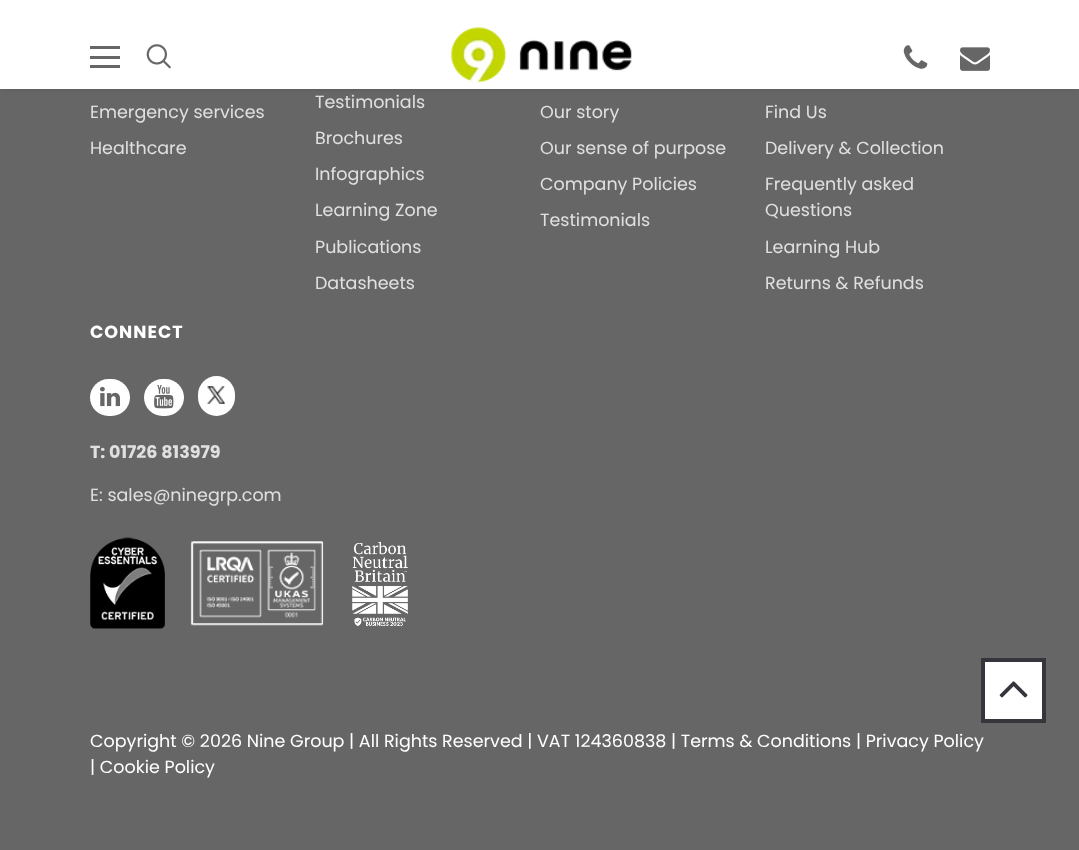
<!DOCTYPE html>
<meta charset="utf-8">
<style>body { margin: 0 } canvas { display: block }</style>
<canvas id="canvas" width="1079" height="850"></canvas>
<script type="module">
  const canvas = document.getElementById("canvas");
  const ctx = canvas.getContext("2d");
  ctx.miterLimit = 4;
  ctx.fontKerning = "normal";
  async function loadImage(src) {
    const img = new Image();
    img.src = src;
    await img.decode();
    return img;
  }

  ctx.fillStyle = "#666666";
  ctx.fillRect(0, 0, 1079, 850);
  ctx.fillStyle = "rgba(0, 0, 0, 0.12)";
  ctx.filter = "blur(2px)";
  ctx.beginPath();
  ctx.rect(4, 8, 1072, 81);
  ctx.fill();
  ctx.filter = "none";
  ctx.fillStyle = "#ffffff";
  ctx.fillRect(0, 0, 1079, 89);
  ctx.fillStyle = "#666666";
  ctx.fillRect(90, 46, 30, 3);
  ctx.fillRect(90, 56, 30, 3);
  ctx.fillRect(90, 65, 30, 3);
  ctx.drawImage(await loadImage("img1.png"), 146, 44, 25, 25);
  ctx.drawImage(await loadImage("img2.png"), 451, 27, 181, 56);
  ctx.drawImage(await loadImage("img3.png"), 903, 45, 25, 24);
  ctx.drawImage(await loadImage("img4.png"), 960, 47, 30, 24);
  ctx.font = "17.5px poppins";
  ctx.fillStyle = "#e0e0e0";
  ctx.fillText("Emergency services", 90, 118);
  ctx.fillText("Healthcare", 90, 154);
  ctx.fillText("Testimonials", 315, 108);
  ctx.fillText("Brochures", 315, 144);
  ctx.fillText("Infographics", 315, 180);
  ctx.fillText("Learning Zone", 315, 216);
  ctx.fillText("Publications", 315, 253);
  ctx.fillText("Datasheets", 315, 289);
  ctx.fillText("Our story", 540, 118);
  ctx.fillText("Our sense of purpose", 540, 154);
  ctx.fillText("Company Policies", 540, 190);
  ctx.fillText("Testimonials", 540, 226);
  ctx.fillText("Find Us", 765, 118);
  ctx.fillText("Delivery & Collection", 765, 154);
  ctx.fillText("Frequently asked", 765, 190);
  ctx.fillText("Questions", 765, 216);
  ctx.fillText("Learning Hub", 765, 253);
  ctx.fillText("Returns & Refunds", 765, 289);
  ctx.letterSpacing = "1px";
  ctx.font = "bold 17.5px poppins";
  ctx.fillStyle = "#ffffff";
  ctx.fillText("CONNECT", 90, 338);
  ctx.beginPath();
  ctx.roundRect(90, 379, 40, 37, 18.5);
  ctx.fill();
  ctx.drawImage(await loadImage("img5.png"), 100, 386, 20, 21);
  ctx.beginPath();
  ctx.roundRect(144, 379, 40, 37, 18.5);
  ctx.fill();
  ctx.drawImage(await loadImage("img6.png"), 154, 385, 20, 24);
  ctx.beginPath();
  ctx.roundRect(198, 376, 37, 40, 18.5);
  ctx.fill();
  ctx.drawImage(await loadImage("img7.png"), 207, 386, 18, 18);
  ctx.letterSpacing = "0px";
  ctx.fillStyle = "#e0e0e0";
  ctx.fillText("T: 01726 813979", 90, 458);
  ctx.font = "17.5px poppins";
  ctx.fillText("E: sales@ninegrp.com", 90, 501);
  ctx.drawImage(await loadImage("img8.png"), 90, 537, 75, 92);
  ctx.drawImage(await loadImage("img9.png"), 190, 541, 134, 85);
  ctx.drawImage(await loadImage("img10.png"), 352, 541, 56, 85);
  ctx.fillStyle = "#ffffff";
  ctx.fillText("Copyright © 2026 Nine Group | All Rights Reserved | VAT 124360838 | Terms & Conditions | Privacy Policy", 90, 747);
  ctx.fillText("| Cookie Policy", 90, 773);
  ctx.beginPath();
  ctx.rect(983, 660, 61, 61);
  ctx.fill();
  ctx.strokeStyle = "#37353c";
  ctx.lineWidth = 4;
  ctx.stroke();
  ctx.drawImage(await loadImage("img11.png"), 999, 681, 29, 17);
</script>
